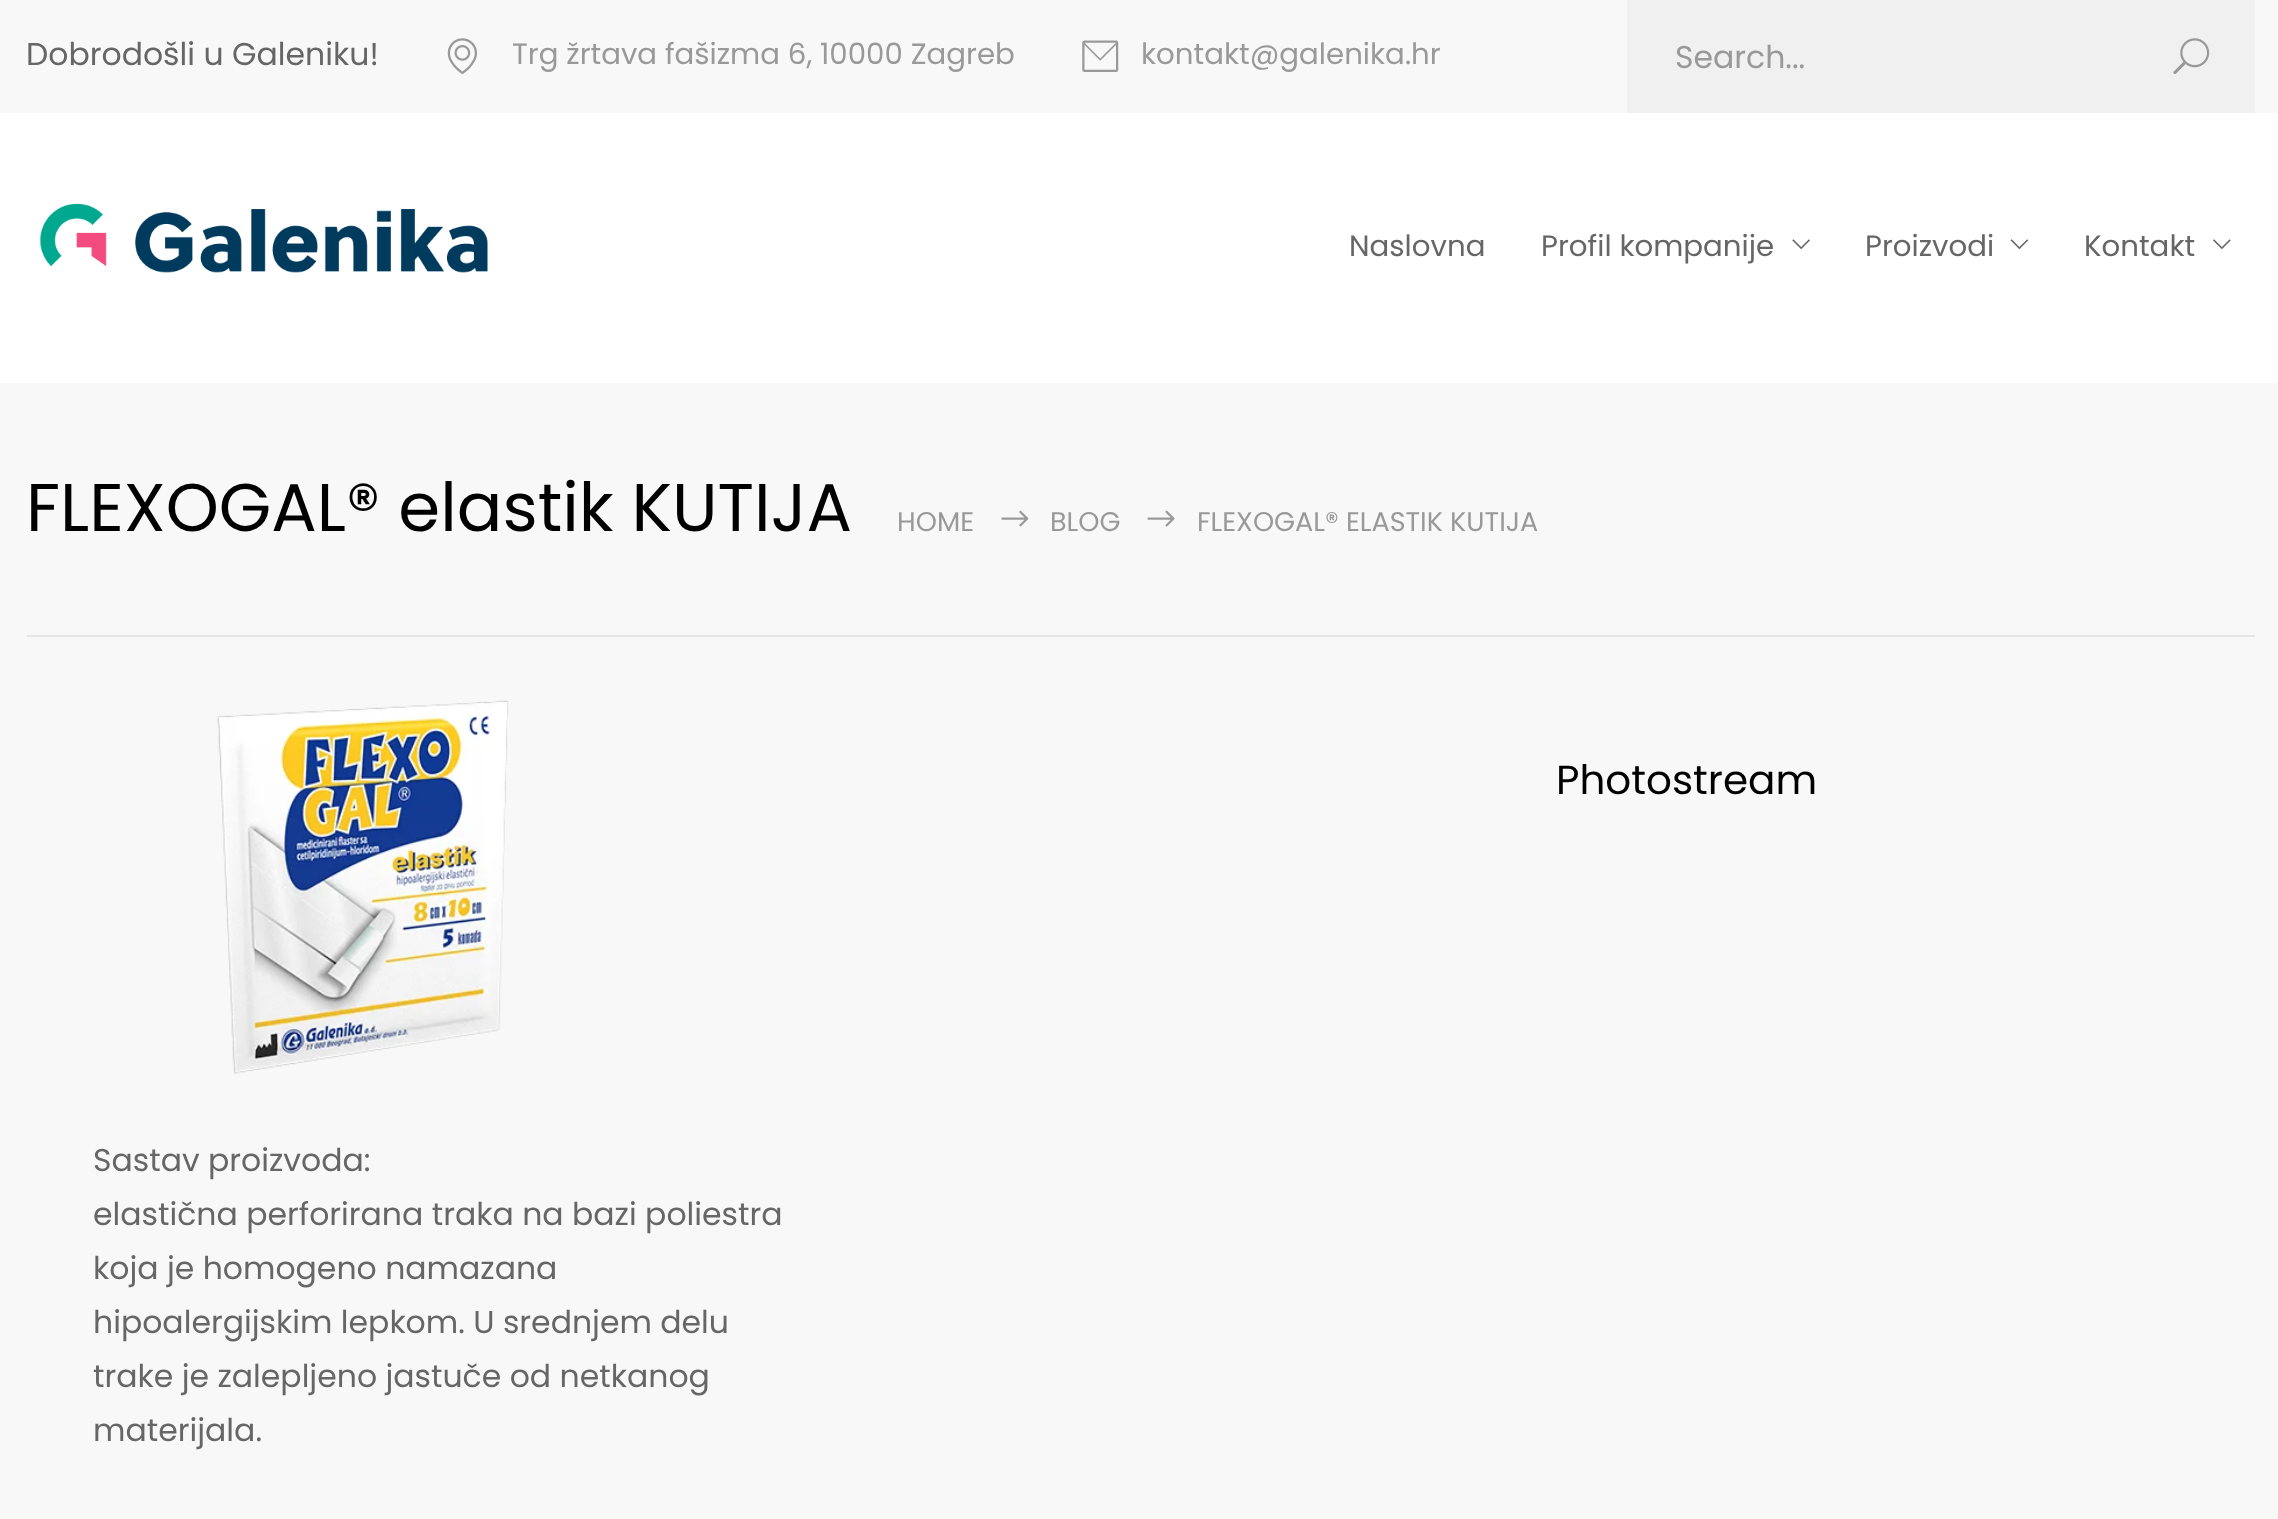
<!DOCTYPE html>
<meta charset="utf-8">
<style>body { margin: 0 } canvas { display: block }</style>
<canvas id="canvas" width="2278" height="1519"></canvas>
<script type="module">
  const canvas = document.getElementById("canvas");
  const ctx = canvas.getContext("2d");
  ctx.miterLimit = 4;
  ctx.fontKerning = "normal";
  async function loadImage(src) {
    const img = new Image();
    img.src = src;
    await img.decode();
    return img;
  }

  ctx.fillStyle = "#f8f8f8";
  ctx.fillRect(0, 0, 2278, 1519);
  ctx.font = "31.5px Poppins";
  ctx.fillStyle = "#666666";
  ctx.fillText("Dobrodošli u Galeniku!", 26, 65);
  ctx.drawImage(await loadImage("img1.png"), 447, 38, 30, 37);
  ctx.font = "29.25px Poppins";
  ctx.fillStyle = "#999999";
  ctx.fillText("Trg žrtava fašizma 6, 10000 Zagreb", 512, 64);
  ctx.drawImage(await loadImage("img2.png"), 1082, 40, 37, 32);
  ctx.fillText("kontakt@galenika.hr", 1141, 64);
  ctx.fillStyle = "#f0f0f0";
  ctx.fillRect(1627, 0, 628, 113);
  ctx.font = "31.5px Poppins";
  ctx.fillStyle = "#999999";
  ctx.fillText("Search...", 1675, 68);
  ctx.drawImage(await loadImage("img3.png"), 2173, 38, 37, 36);
  ctx.fillStyle = "#ffffff";
  ctx.fillRect(0, 113, 2278, 270);
  ctx.drawImage(await loadImage("img4.png"), 39, 203, 449, 70);
  ctx.font = "29.25px Poppins";
  ctx.fillStyle = "#666666";
  ctx.fillText("Naslovna", 1349, 256);
  ctx.fillText("Profil kompanije", 1541, 256);
  ctx.drawImage(await loadImage("img5.png"), 1792, 239, 18, 11);
  ctx.fillText("Proizvodi", 1865, 256);
  ctx.drawImage(await loadImage("img6.png"), 2010, 239, 19, 11);
  ctx.fillText("Kontakt", 2084, 256);
  ctx.drawImage(await loadImage("img7.png"), 2213, 239, 18, 11);
  ctx.fillStyle = "#e5e5e5";
  ctx.fillRect(27, 635, 2228, 2);
  ctx.font = "67.5px Poppins";
  ctx.fillStyle = "#000000";
  ctx.fillText("FLEXOGAL® elastik KUTIJA", 26, 531);
  ctx.font = "27px Poppins";
  ctx.fillStyle = "#999999";
  ctx.fillText("HOME", 897, 531);
  ctx.drawImage(await loadImage("img8.png"), 1001, 510, 28, 17);
  ctx.fillText("BLOG", 1050, 531);
  ctx.drawImage(await loadImage("img9.png"), 1147, 510, 28, 17);
  ctx.fillText("FLEXOGAL® ELASTIK KUTIJA", 1197, 531);
  ctx.font = "40.5px Poppins";
  ctx.fillStyle = "#000000";
  ctx.fillText("Photostream", 1556, 794);
  ctx.drawImage(await loadImage("img10.png"), 217, 700, 292, 374);
  ctx.font = "31.5px Poppins";
  ctx.fillStyle = "#666666";
  ctx.fillText("Sastav proizvoda:", 93, 1171);
  ctx.fillText("elastična perforirana traka na bazi poliestra", 93, 1225);
  ctx.fillText("koja je homogeno namazana", 93, 1279);
  ctx.fillText("hipoalergijskim lepkom. U srednjem delu", 93, 1333);
  ctx.fillText("trake je zalepljeno jastuče od netkanog", 93, 1387);
  ctx.fillText("materijala.", 93, 1441);
</script>
